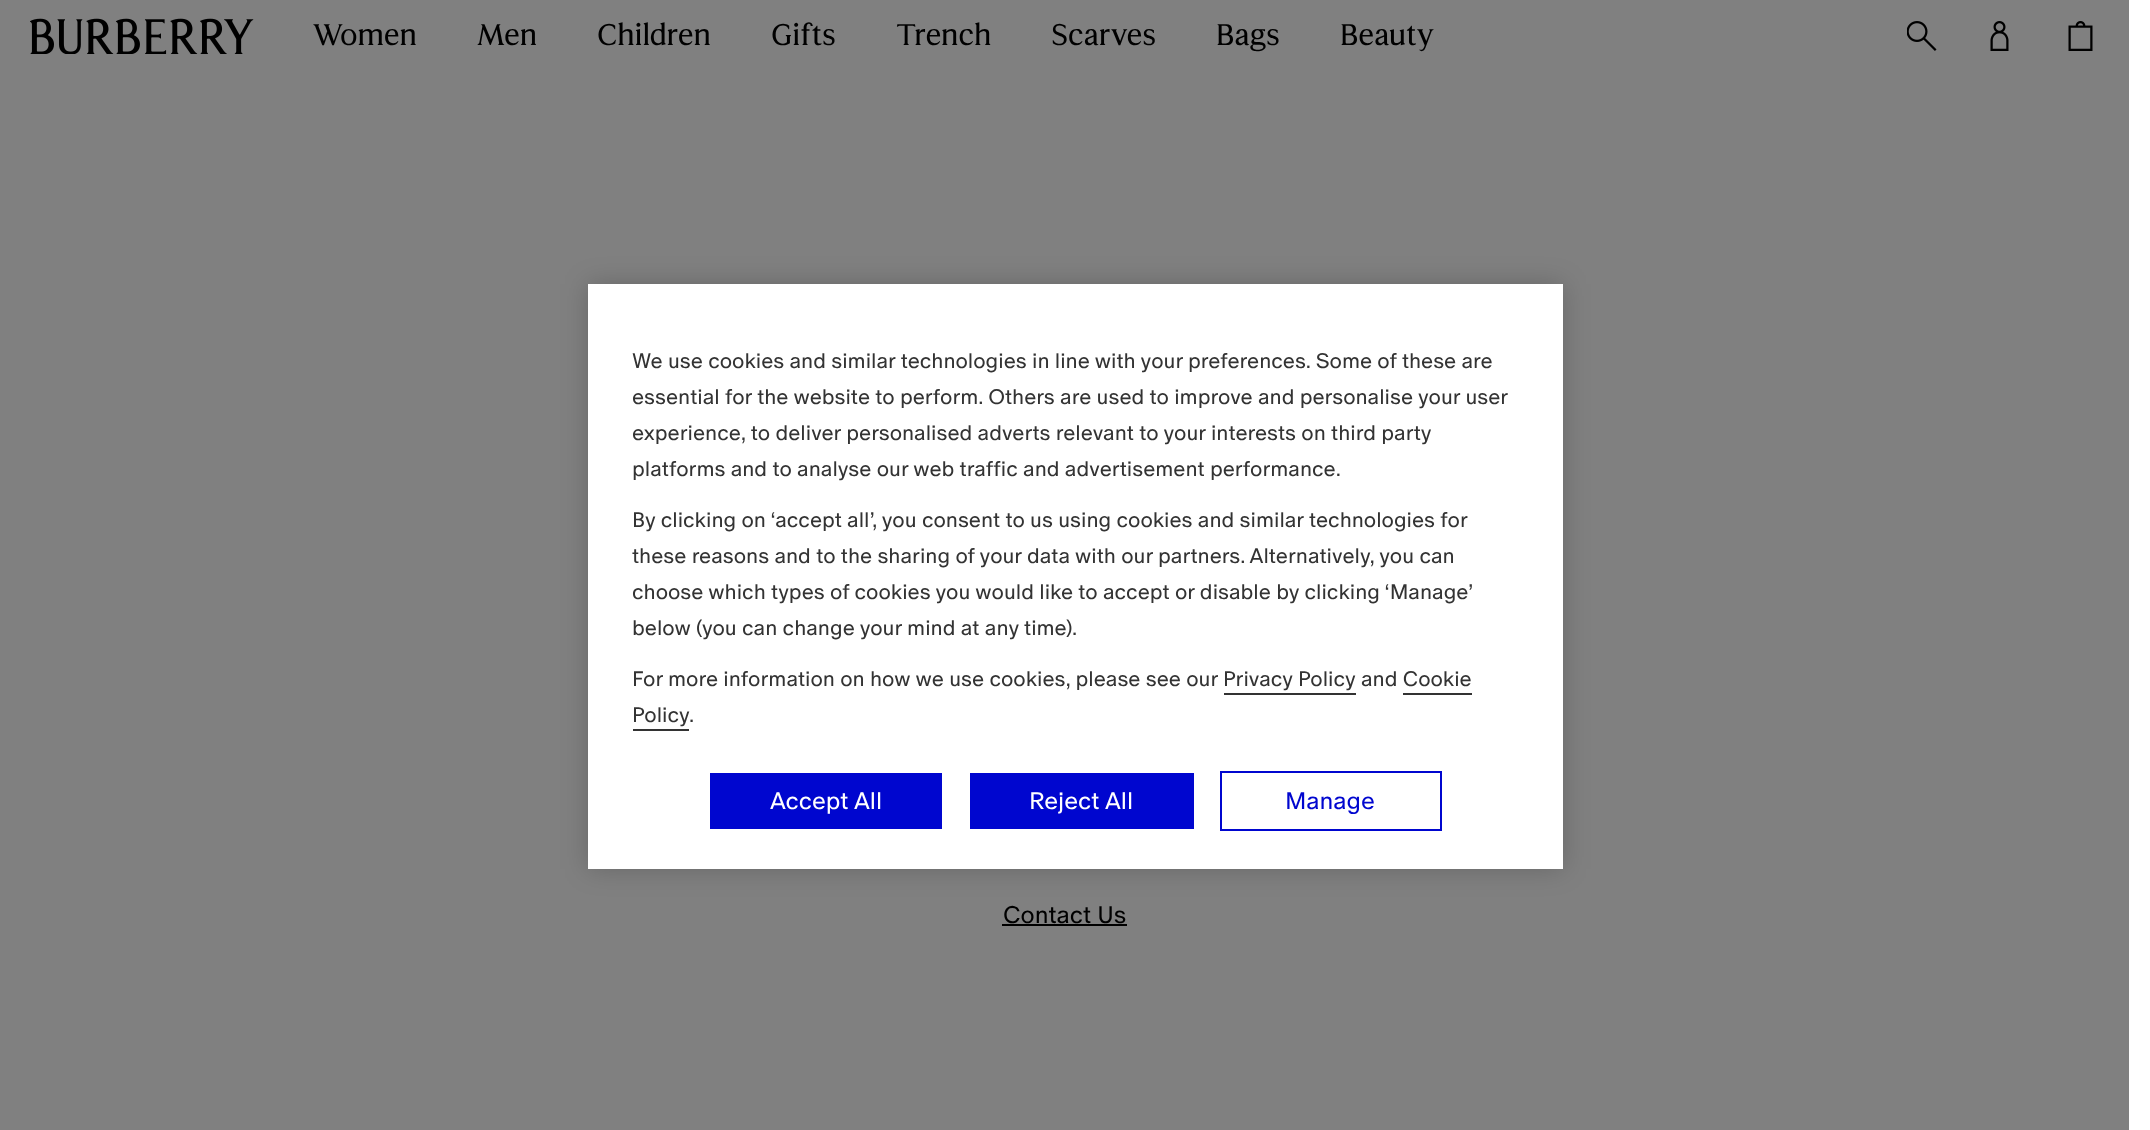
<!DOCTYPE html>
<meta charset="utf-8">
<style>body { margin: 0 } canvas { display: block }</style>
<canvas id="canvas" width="2150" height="1130"></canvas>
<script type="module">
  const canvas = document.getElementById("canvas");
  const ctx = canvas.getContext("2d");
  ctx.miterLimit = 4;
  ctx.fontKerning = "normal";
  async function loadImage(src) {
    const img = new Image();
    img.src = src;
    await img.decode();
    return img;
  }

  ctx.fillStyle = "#ffffff";
  ctx.fillRect(0, 0, 2150, 1130);
  ctx.fillStyle = "#808080";
  ctx.fillRect(0, 0, 2129, 1130);
  ctx.drawImage(await loadImage("img1.png"), 30, 18, 224, 36);
  ctx.font = "30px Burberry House";
  ctx.fillStyle = "#000000";
  ctx.fillText("Women", 313, 45);
  ctx.fillText("Men", 477, 45);
  ctx.fillText("Children", 597, 45);
  ctx.fillText("Gifts", 771, 45);
  ctx.fillText("Trench", 896, 45);
  ctx.fillText("Scarves", 1051, 45);
  ctx.fillText("Bags", 1216, 45);
  ctx.fillText("Beauty", 1340, 45);
  ctx.drawImage(await loadImage("img2.png"), 1907, 21, 30, 30);
  ctx.drawImage(await loadImage("img3.png"), 1990, 21, 19, 30);
  ctx.drawImage(await loadImage("img4.png"), 2068, 21, 25, 30);
  ctx.font = "24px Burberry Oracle";
  ctx.fillText("Contact Us", 1003, 923);
  ctx.fillRect(1002, 924, 125, 2);
  ctx.fillStyle = "rgba(0, 0, 0, 0.2)";
  ctx.filter = "blur(13.5px)";
  ctx.beginPath();
  ctx.rect(588, 284, 975, 585);
  ctx.fill();
  ctx.filter = "none";
  ctx.fillStyle = "#ffffff";
  ctx.fillRect(588, 284, 975, 585);
  ctx.font = "21px Burberry Oracle";
  ctx.fillStyle = "#333333";
  ctx.fillText("We use cookies and similar technologies in line with your preferences. Some of these are", 632, 368);
  ctx.fillText("essential for the website to perform. Others are used to improve and personalise your user", 632, 404);
  ctx.fillText("experience, to deliver personalised adverts relevant to your interests on third party", 632, 440);
  ctx.fillText("platforms and to analyse our web traffic and advertisement performance.", 632, 476);
  ctx.fillText("By clicking on ‘accept all’, you consent to us using cookies and similar technologies for", 632, 527);
  ctx.fillText("these reasons and to the sharing of your data with our partners. Alternatively, you can", 632, 563);
  ctx.fillText("choose which types of cookies you would like to accept or disable by clicking ‘Manage’", 632, 599);
  ctx.fillText("below (you can change your mind at any time).", 632, 635);
  ctx.fillText("For more information on how we use cookies, please see our Privacy Policy", 632, 686);
  ctx.fillText("and Cookie", 1361, 686);
  ctx.fillRect(1224, 693, 132, 2);
  ctx.fillText("Policy", 632, 722);
  ctx.fillRect(1403, 693, 69, 2);
  ctx.fillRect(633, 729, 56, 2);
  ctx.fillText(".", 689, 722);
  ctx.fillStyle = "#0006cf";
  ctx.fillRect(710, 773, 232, 56);
  ctx.font = "24px Burberry Oracle";
  ctx.fillStyle = "#ffffff";
  ctx.fillText("Accept All", 770, 809);
  ctx.fillStyle = "#0006cf";
  ctx.fillRect(970, 773, 224, 56);
  ctx.fillStyle = "#ffffff";
  ctx.fillText("Reject All", 1029, 809);
  ctx.strokeStyle = "#0006cf";
  ctx.lineWidth = 2;
  ctx.strokeRect(1221, 772, 220, 58);
  ctx.fillStyle = "#0006cf";
  ctx.fillText("Manage", 1285, 809);
</script>
